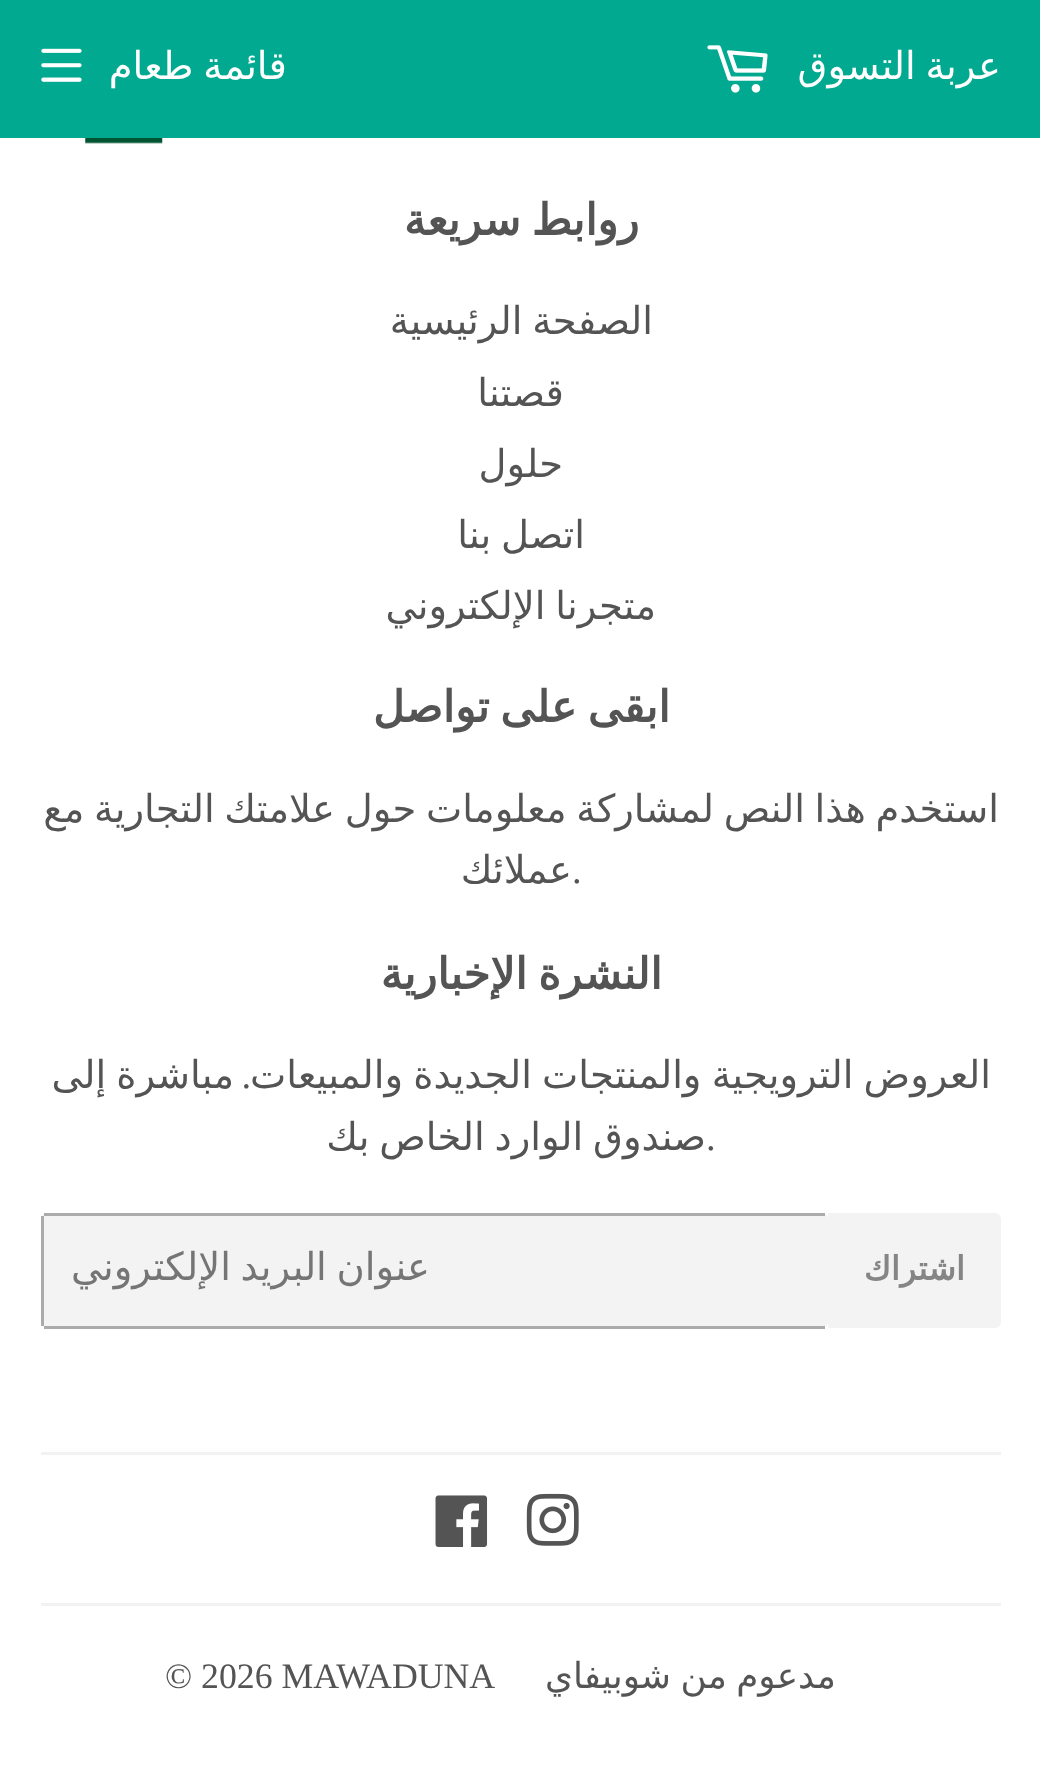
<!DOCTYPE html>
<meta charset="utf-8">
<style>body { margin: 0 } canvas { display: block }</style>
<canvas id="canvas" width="1040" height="1776"></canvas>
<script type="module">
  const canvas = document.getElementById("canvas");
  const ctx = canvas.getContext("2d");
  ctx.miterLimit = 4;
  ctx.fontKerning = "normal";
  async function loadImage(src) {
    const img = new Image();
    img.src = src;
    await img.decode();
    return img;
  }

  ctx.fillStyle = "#ffffff";
  ctx.fillRect(0, 0, 1040, 1776);
  ctx.fillStyle = "#00a98f";
  ctx.fillRect(0, 0, 1040, 138);
  ctx.wordSpacing = "-2.5px";
  ctx.direction = "rtl";
  ctx.font = "38.5px DejaVu Sans";
  ctx.fillStyle = "#ffffff";
  ctx.fillText("عربة التسوق", 1001, 79);
  ctx.drawImage(await loadImage("img1.png"), 707, 45, 61, 48);
  ctx.fillText("قائمة طعام", 287, 79);
  ctx.drawImage(await loadImage("img2.png"), 41, 48, 41, 34);
  ctx.drawImage(await loadImage("img3.png"), 85, 138, 78, 6);
  ctx.wordSpacing = "-3px";
  ctx.font = "bold 43.5px DejaVu Sans";
  ctx.fillStyle = "#545454";
  ctx.fillText("روابط سريعة", 639, 235);
  ctx.wordSpacing = "-2.5px";
  ctx.font = "38.5px DejaVu Sans";
  ctx.fillText("الصفحة الرئيسية", 653, 334);
  ctx.wordSpacing = "0px";
  ctx.fillText("قصتنا", 564, 406);
  ctx.fillText("حلول", 563, 477);
  ctx.wordSpacing = "-2.5px";
  ctx.fillText("اتصل بنا", 585, 548);
  ctx.fillText("متجرنا الإلكتروني", 656, 619);
  ctx.wordSpacing = "-3px";
  ctx.font = "bold 43.5px DejaVu Sans";
  ctx.fillText("ابقى على تواصل", 670, 722);
  ctx.wordSpacing = "-2.5px";
  ctx.font = "38.5px DejaVu Sans";
  ctx.fillText("استخدم هذا النص لمشاركة معلومات حول علامتك التجارية مع", 999, 822);
  ctx.wordSpacing = "0px";
  ctx.direction = "ltr";
  ctx.font = "38.5px Liberation Serif";
  ctx.fillText(".", 572, 883);
  ctx.direction = "rtl";
  ctx.font = "38.5px DejaVu Sans";
  ctx.fillText("عملائك", 572, 883);
  ctx.wordSpacing = "-3px";
  ctx.font = "bold 43.5px DejaVu Sans";
  ctx.fillText("النشرة الإخبارية", 662, 989);
  ctx.wordSpacing = "-2px";
  ctx.font = "38.5px DejaVu Sans";
  ctx.fillText("العروض الترويجية والمنتجات الجديدة والمبيعات", 991, 1088);
  ctx.wordSpacing = "0px";
  ctx.font = "38.5px Liberation Serif";
  ctx.fillText(".", 251, 1088);
  ctx.wordSpacing = "-2px";
  ctx.font = "38.5px DejaVu Sans";
  ctx.fillText("مباشرة إلى", 234, 1088);
  ctx.wordSpacing = "-2.5px";
  ctx.fillText("صندوق الوارد الخاص بك", 706, 1150);
  ctx.wordSpacing = "0px";
  ctx.direction = "ltr";
  ctx.font = "38.5px Liberation Serif";
  ctx.fillText(".", 706, 1150);
  ctx.fillStyle = "#f3f3f3";
  ctx.beginPath();
  ctx.roundRect(828, 1213, 173, 115, [0, 6, 6, 0]);
  ctx.fill();
  ctx.direction = "rtl";
  ctx.font = "bold 33px DejaVu Sans";
  ctx.fillStyle = "#858585";
  ctx.fillText("اشتراك", 965, 1280);
  ctx.fillStyle = "#f3f3f3";
  ctx.beginPath();
  ctx.roundRect(41, 1213, 787, 115, 6);
  ctx.fill();
  ctx.fillStyle = "#ababab";
  ctx.fillRect(44, 1213, 781, 3);
  ctx.fillRect(44, 1326, 781, 3);
  ctx.fillRect(41, 1216, 3, 110);
  ctx.wordSpacing = "-2.5px";
  ctx.font = "38.5px DejaVu Sans";
  ctx.fillStyle = "#757575";
  ctx.fillText("عنوان البريد الإلكتروني", 430, 1280);
  ctx.fillStyle = "#f2f2f2";
  ctx.fillRect(41, 1452, 960, 3);
  ctx.drawImage(await loadImage("img4.png"), 526, 1493, 53, 53);
  ctx.drawImage(await loadImage("img5.png"), 435, 1495, 53, 52);
  ctx.fillRect(41, 1603, 960, 3);
  ctx.wordSpacing = "-2px";
  ctx.font = "35.75px DejaVu Sans";
  ctx.fillStyle = "#545454";
  ctx.fillText("مدعوم من شوبيفاي", 836, 1688);
  ctx.wordSpacing = "0px";
  ctx.direction = "ltr";
  ctx.font = "35.75px Liberation Serif";
  ctx.fillText("© 2026 MAWADUNA", 165, 1688);
</script>
